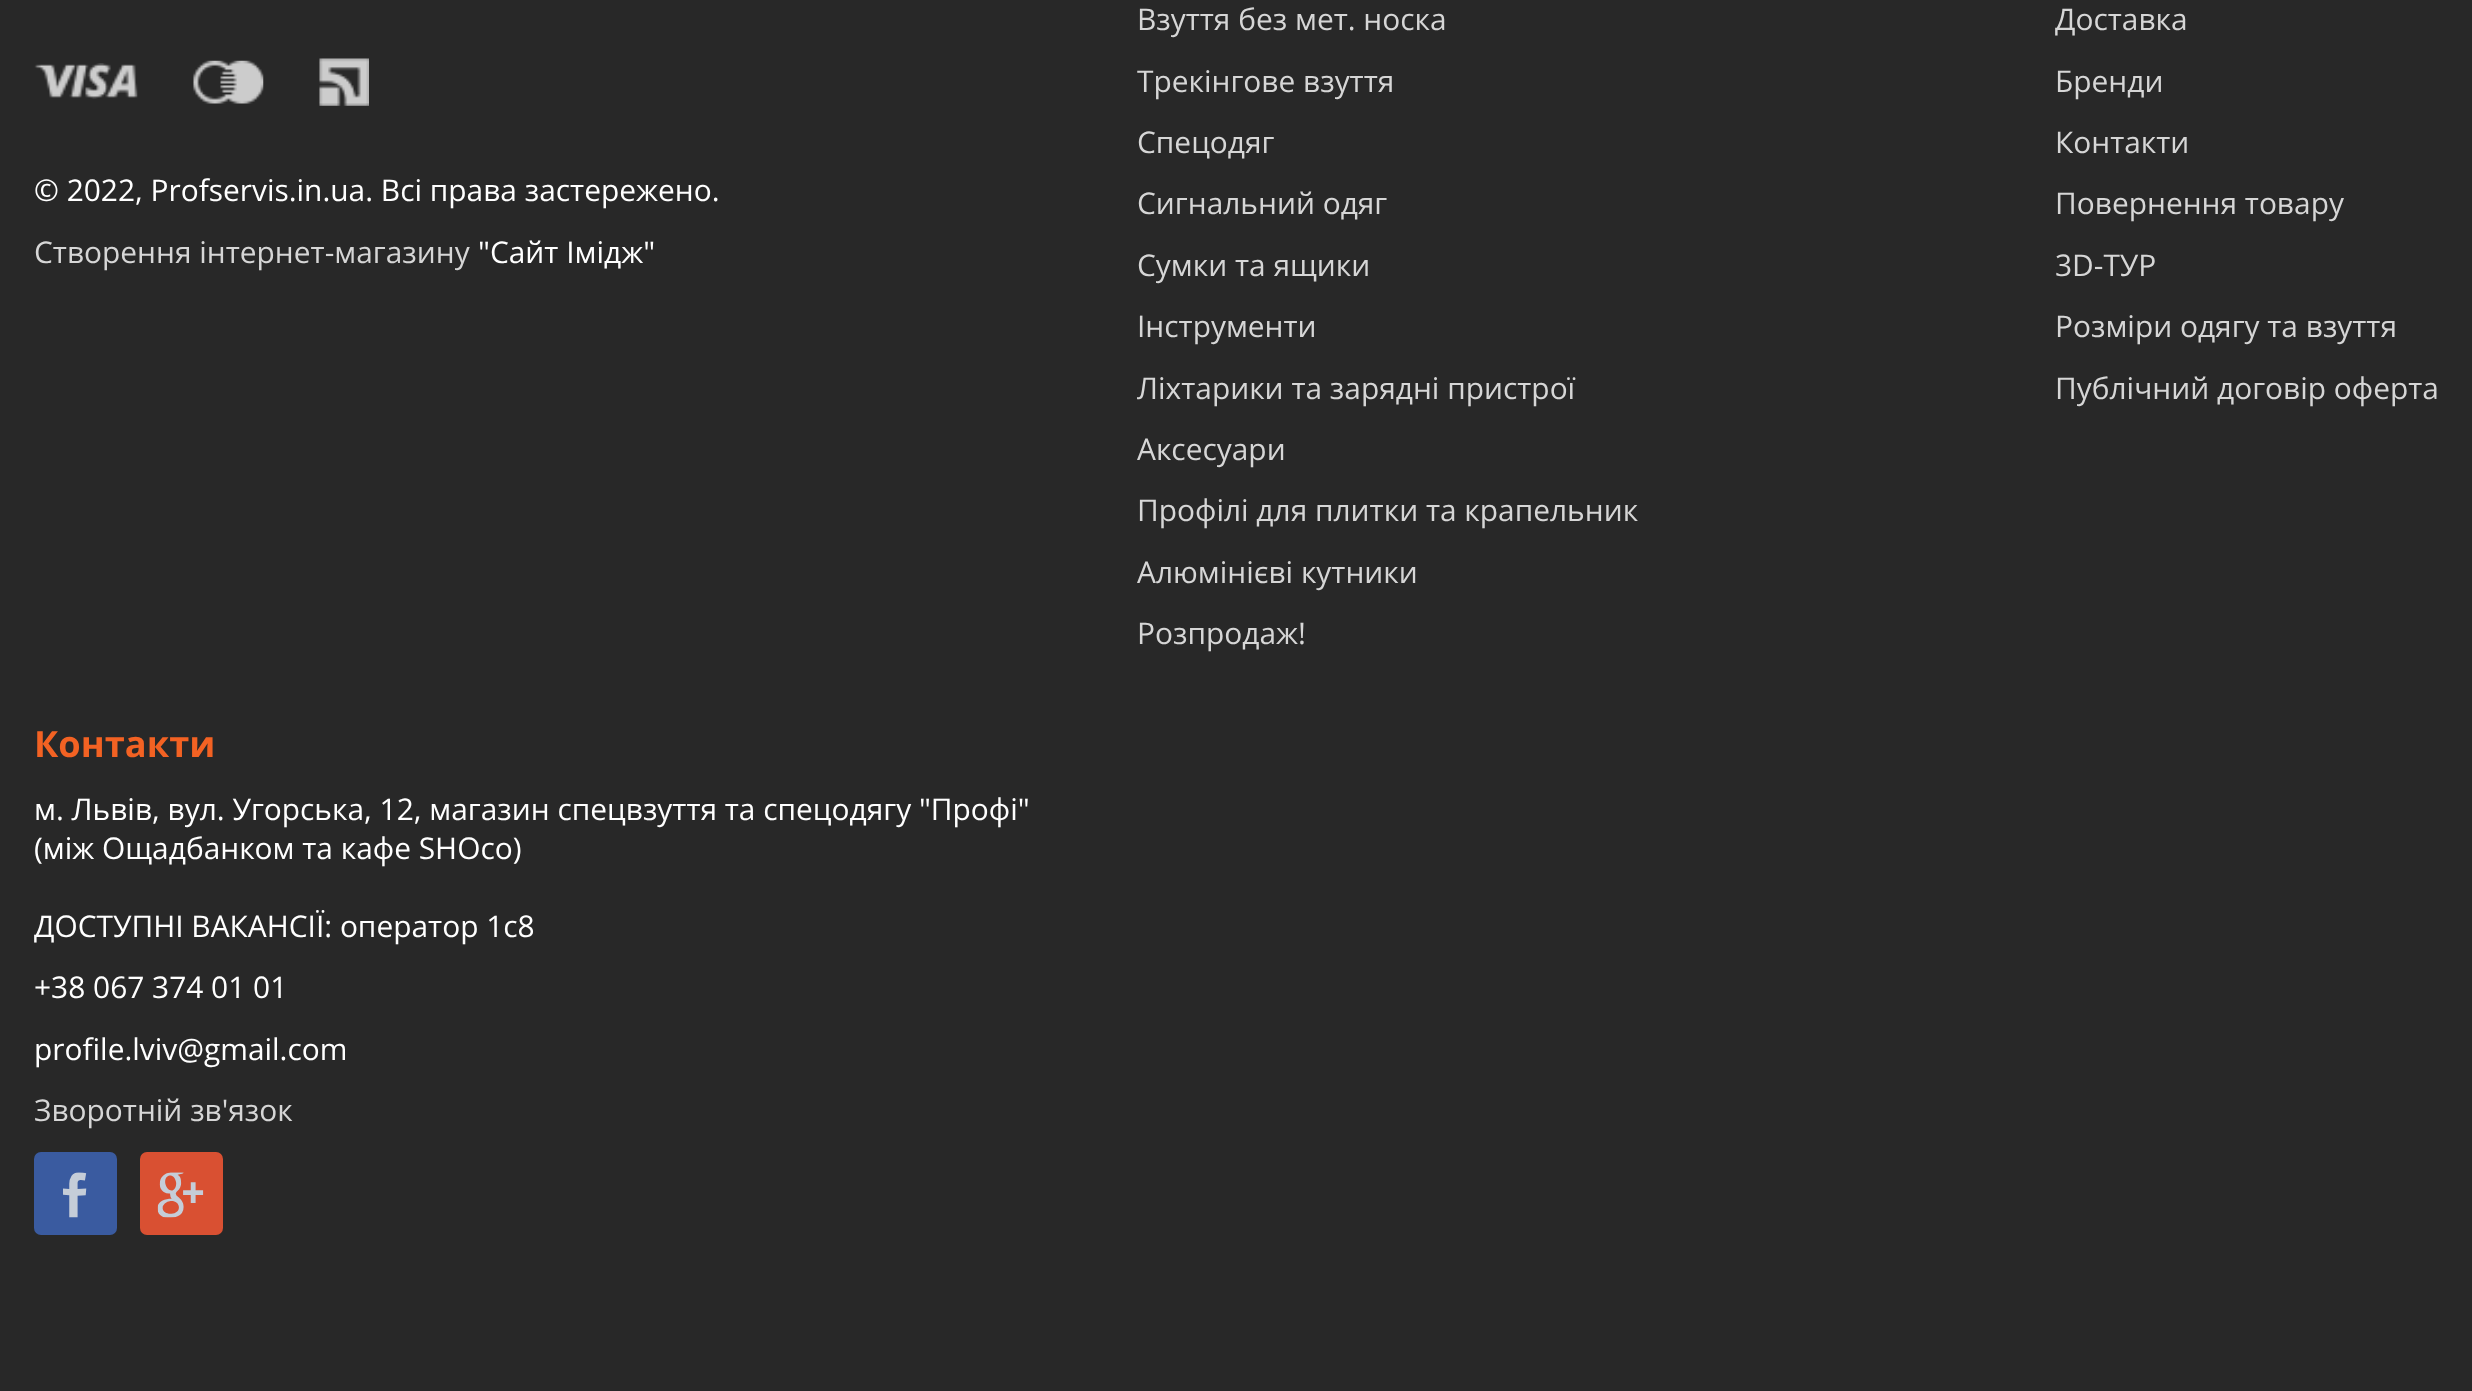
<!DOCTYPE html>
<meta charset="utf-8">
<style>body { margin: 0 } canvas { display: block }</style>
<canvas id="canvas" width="2472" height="1391"></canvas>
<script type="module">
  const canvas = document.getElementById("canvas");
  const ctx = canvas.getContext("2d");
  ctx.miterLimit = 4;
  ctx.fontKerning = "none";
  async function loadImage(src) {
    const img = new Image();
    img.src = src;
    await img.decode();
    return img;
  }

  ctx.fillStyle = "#282828";
  ctx.fillRect(0, 0, 2472, 1391);
  ctx.drawImage(await loadImage("img1.png"), 34, 63, 104, 36);
  ctx.drawImage(await loadImage("img2.png"), 193, 60, 71, 44);
  ctx.drawImage(await loadImage("img3.png"), 319, 58, 50, 48);
  ctx.font = "29.9px Open Sans";
  ctx.fillStyle = "#ffffff";
  ctx.fillText("© 2022, Profservis.in.ua. Всі права застережено.", 34, 201);
  ctx.fillStyle = "#d6d6d6";
  ctx.fillText("Створення інтернет-магазину", 34, 263);
  ctx.fillStyle = "#ffffff";
  ctx.fillText("\"Сайт Імідж\"", 478, 263);
  ctx.fillStyle = "#d6d6d6";
  ctx.fillText("Взуття без мет. носка", 1137, 30);
  ctx.fillText("Трекінгове взуття", 1137, 92);
  ctx.fillText("Спецодяг", 1137, 153);
  ctx.fillText("Сигнальний одяг", 1137, 214);
  ctx.fillText("Сумки та ящики", 1137, 276);
  ctx.fillText("Інструменти", 1137, 337);
  ctx.fillText("Ліхтарики та зарядні пристрої", 1137, 399);
  ctx.fillText("Аксесуари", 1137, 460);
  ctx.fillText("Профілі для плитки та крапельник", 1137, 521);
  ctx.fillText("Алюмінієві кутники", 1137, 583);
  ctx.fillText("Розпродаж!", 1137, 644);
  ctx.fillText("Доставка", 2055, 30);
  ctx.fillText("Бренди", 2055, 92);
  ctx.fillText("Контакти", 2055, 153);
  ctx.fillText("Повернення товару", 2055, 214);
  ctx.fillText("3D-ТУР", 2055, 276);
  ctx.fillText("Розміри одягу та взуття", 2055, 337);
  ctx.fillText("Публiчний договiр оферта", 2055, 399);
  ctx.font = "bold 36.25px Open Sans";
  ctx.fillStyle = "#f36223";
  ctx.fillText("Контакти", 34, 757);
  ctx.font = "29.9px Open Sans";
  ctx.fillStyle = "#ffffff";
  ctx.fillText("м. Львів, вул. Угорська, 12, магазин спецвзуття та спецодягу \"Профі\"", 34, 820);
  ctx.fillText("(між Ощадбанком та кафе SHOco)", 34, 859);
  ctx.fillText("ДОСТУПНІ ВАКАНСІЇ: оператор 1с8", 34, 937);
  ctx.fillText("+38 067 374 01 01", 34, 998);
  ctx.fillText("profile.lviv@gmail.com", 34, 1060);
  ctx.fillStyle = "#d6d6d6";
  ctx.fillText("Зворотній зв'язок", 34, 1121);
  ctx.fillStyle = "#3a5ba0";
  ctx.beginPath();
  ctx.roundRect(34, 1152, 83, 83, 7);
  ctx.fill();
  ctx.drawImage(await loadImage("img4.png"), 63, 1172, 24, 46);
  ctx.fillStyle = "#d95032";
  ctx.beginPath();
  ctx.roundRect(140, 1152, 83, 83, 7);
  ctx.fill();
  ctx.drawImage(await loadImage("img5.png"), 157, 1172, 47, 46);
</script>
